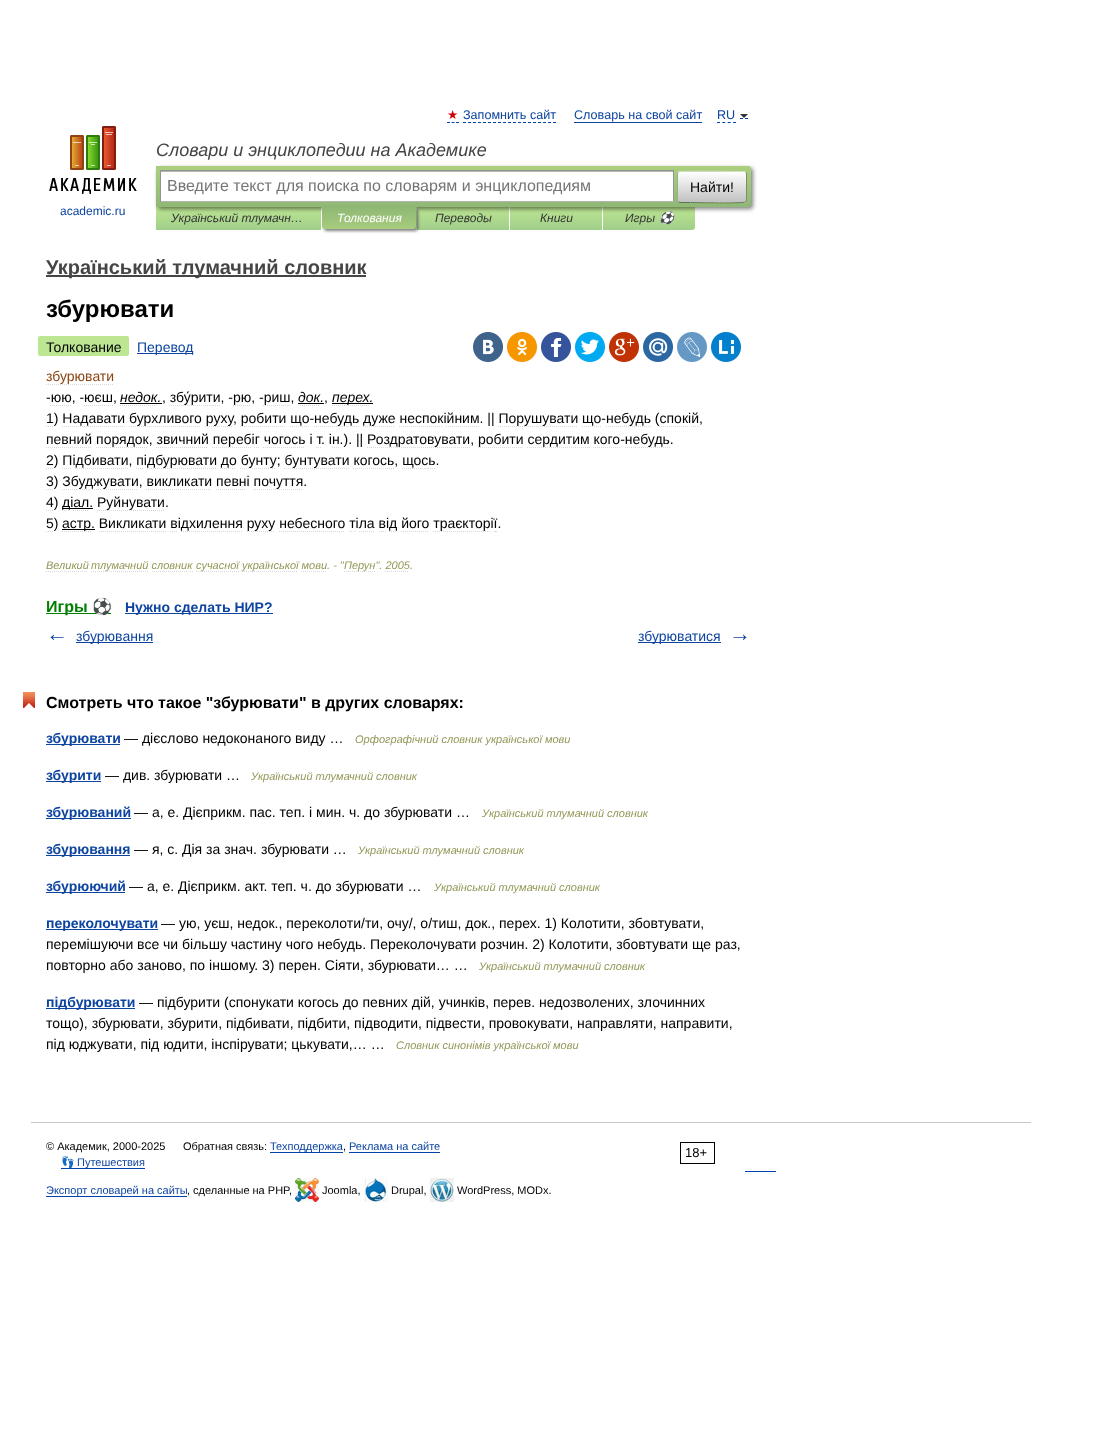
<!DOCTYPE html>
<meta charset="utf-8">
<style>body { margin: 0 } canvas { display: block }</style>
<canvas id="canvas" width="1111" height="1441"></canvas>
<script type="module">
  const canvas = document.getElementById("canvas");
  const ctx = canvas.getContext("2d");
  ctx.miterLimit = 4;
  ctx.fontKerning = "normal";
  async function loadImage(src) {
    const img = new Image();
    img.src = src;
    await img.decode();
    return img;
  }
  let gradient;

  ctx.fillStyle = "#ffffff";
  ctx.fillRect(0, 0, 1111, 1441);
  ctx.font = "12.6px DejaVu Sans";
  ctx.fillStyle = "#cc0000";
  ctx.fillText("★", 447, 119);
  ctx.beginPath();
  ctx.moveTo(447, 122.5);
  ctx.lineTo(450, 122.5);
  ctx.moveTo(451.5, 122.5);
  ctx.lineTo(454.5, 122.5);
  ctx.moveTo(456, 122.5);
  ctx.lineTo(459, 122.5);
  ctx.strokeStyle = "#0044aa";
  ctx.stroke();
  ctx.font = "12.6px Liberation Sans";
  ctx.fillStyle = "#0d44a0";
  ctx.fillText("Запомнить сайт", 463, 119);
  ctx.beginPath();
  ctx.moveTo(463, 122.5);
  ctx.lineTo(556, 122.5);
  ctx.setLineDash([3, 2]);
  ctx.stroke();
  ctx.fillText("Словарь на свой сайт", 574, 119);
  ctx.fillRect(574, 122, 128, 1);
  ctx.beginPath();
  ctx.moveTo(717, 122.5);
  ctx.lineTo(736, 122.5);
  ctx.setLineDash([3, 2.33]);
  ctx.stroke();
  ctx.beginPath();
  ctx.moveTo(740, 118.5);
  ctx.lineTo(743, 118.5);
  ctx.moveTo(745, 118.5);
  ctx.lineTo(748, 118.5);
  ctx.setLineDash([]);
  ctx.stroke();
  ctx.fillText("RU", 717, 119);
  ctx.fillStyle = "#333333";
  ctx.beginPath();
  ctx.moveTo(740, 114);
  ctx.lineTo(748, 114);
  ctx.lineTo(744, 118);
  ctx.closePath();
  ctx.fill();
  ctx.font = "italic 18px Liberation Sans";
  ctx.fillStyle = "#454545";
  ctx.fillText("Словари и энциклопедии на Академике", 156, 156);
  gradient = ctx.createLinearGradient(239, 207, 239, 230);
  gradient.addColorStop(0, "#bde693");
  gradient.addColorStop(1, "#a0ce8a");
  ctx.fillStyle = gradient;
  ctx.fillRect(156, 207, 165, 23);
  gradient = ctx.createLinearGradient(463, 207, 463, 230);
  gradient.addColorStop(0, "#bde693");
  gradient.addColorStop(1, "#a0ce8a");
  ctx.fillStyle = gradient;
  ctx.fillRect(417, 207, 92, 23);
  gradient = ctx.createLinearGradient(556, 207, 556, 230);
  gradient.addColorStop(0, "#bde693");
  gradient.addColorStop(1, "#a0ce8a");
  ctx.fillStyle = gradient;
  ctx.fillRect(510, 207, 92, 23);
  gradient = ctx.createLinearGradient(649, 207, 649, 230);
  gradient.addColorStop(0, "#bde693");
  gradient.addColorStop(1, "#a0ce8a");
  ctx.fillStyle = gradient;
  ctx.beginPath();
  ctx.roundRect(603, 207, 92, 23, [0, 0, 3, 0]);
  ctx.fill();
  ctx.fillStyle = "rgba(0, 0, 0, 0.5)";
  ctx.filter = "blur(2px)";
  ctx.beginPath();
  ctx.roundRect(158, 168, 595, 41, 3);
  ctx.fill();
  ctx.filter = "none";
  gradient = ctx.createLinearGradient(454, 166, 454, 207);
  gradient.addColorStop(0, "#abcf7e");
  gradient.addColorStop(1, "#8eb874");
  ctx.fillStyle = gradient;
  ctx.beginPath();
  ctx.roundRect(156, 166, 595, 41, [0, 3, 3, 0]);
  ctx.fill();
  ctx.fillStyle = "#ffffff";
  ctx.fillRect(161, 172, 512, 29);
  ctx.fillStyle = "#b3b3b3";
  ctx.fillRect(161, 171, 512, 1);
  ctx.fillStyle = "#949494";
  ctx.fillRect(160, 170, 514, 1);
  ctx.fillRect(673, 170, 1, 32);
  ctx.fillStyle = "#b4b4b4";
  ctx.fillRect(160, 201, 514, 1);
  ctx.fillStyle = "#949494";
  ctx.fillRect(160, 170, 1, 32);
  ctx.font = "16px Liberation Sans";
  ctx.fillStyle = "#757575";
  ctx.fillText("Введите текст для поиска по словарям и энциклопедиям", 167, 191);
  ctx.save();
  ctx.beginPath();
  ctx.roundRect(677, 171, 70, 32, 3);
  ctx.clip();
  gradient = ctx.createLinearGradient(712, 142, 712, 172);
  gradient.addColorStop(0, "#ffffff");
  gradient.addColorStop(1, "#c1c1c1");
  ctx.fillStyle = gradient;
  ctx.fillRect(677, 171, 70, 1);
  gradient = ctx.createLinearGradient(712, 172, 712, 202);
  gradient.addColorStop(0, "#ffffff");
  gradient.addColorStop(1, "#c1c1c1");
  ctx.fillStyle = gradient;
  ctx.fillRect(677, 172, 70, 30);
  gradient = ctx.createLinearGradient(712, 202, 712, 232);
  gradient.addColorStop(0, "#ffffff");
  gradient.addColorStop(1, "#c1c1c1");
  ctx.fillStyle = gradient;
  ctx.fillRect(677, 202, 70, 1);
  ctx.restore();
  ctx.beginPath();
  ctx.moveTo(678, 172);
  ctx.lineTo(678.5, 172);
  ctx.bezierCurveTo(680.5, 170.5, 727, 171.5, 733.5, 171.5);
  ctx.lineTo(744, 171.5);
  ctx.lineTo(746, 172);
  ctx.strokeStyle = "#d1e4bc";
  ctx.stroke();
  ctx.beginPath();
  ctx.moveTo(746, 172);
  ctx.bezierCurveTo(746, 172.5, 746.5, 173.5, 746.5, 174);
  ctx.lineTo(746.5, 200);
  ctx.bezierCurveTo(746.5, 200.5, 746, 201.5, 746, 202);
  ctx.strokeStyle = "#7a8e69";
  ctx.stroke();
  ctx.beginPath();
  ctx.moveTo(746, 202);
  ctx.lineTo(745.5, 202);
  ctx.bezierCurveTo(743.5, 203.5, 697, 202.5, 690.5, 202.5);
  ctx.lineTo(680, 202.5);
  ctx.lineTo(678, 202);
  ctx.strokeStyle = "#5d7250";
  ctx.stroke();
  ctx.beginPath();
  ctx.moveTo(678, 202);
  ctx.bezierCurveTo(678, 201.5, 677.5, 200.5, 677.5, 200);
  ctx.lineTo(677.5, 174);
  ctx.bezierCurveTo(677.5, 173.5, 678, 172.5, 678, 172);
  ctx.strokeStyle = "#9aae89";
  ctx.stroke();
  ctx.font = "14px Liberation Sans";
  ctx.fillStyle = "#000000";
  ctx.fillText("Найти!", 690, 192);
  ctx.drawImage(await loadImage("img1.png"), 49, 126, 88, 68);
  ctx.font = "12px Liberation Sans";
  ctx.fillStyle = "#0d44a0";
  ctx.fillText("academic.ru", 60, 215);
  ctx.font = "italic 12px Liberation Sans";
  ctx.fillStyle = "#353535";
  ctx.fillText("Український тлумачн…", 171, 222);
  ctx.fillStyle = "rgba(0, 0, 0, 0.5)";
  ctx.filter = "blur(1.5px)";
  ctx.beginPath();
  ctx.roundRect(324, 209, 94, 22, 3);
  ctx.fill();
  ctx.filter = "none";
  gradient = ctx.createLinearGradient(369, 207, 369, 229);
  gradient.addColorStop(0, "#8fb875");
  gradient.addColorStop(1, "#a7cc7d");
  ctx.fillStyle = gradient;
  ctx.beginPath();
  ctx.roundRect(322, 207, 94, 22, [0, 0, 3, 3]);
  ctx.fill();
  ctx.fillStyle = "#ffffff";
  ctx.fillText("Толкования", 337, 222);
  ctx.fillStyle = "#353535";
  ctx.fillText("Переводы", 435, 222);
  ctx.fillText("Книги", 540, 222);
  ctx.fillText("Игры", 625, 222);
  ctx.font = "italic 12px Noto Color Emoji";
  ctx.fillText("⚽", 659, 222);
  ctx.fillStyle = "#454545";
  ctx.fillRect(46, 275, 320, 2);
  ctx.font = "bold 20px Liberation Sans";
  ctx.fillText("Український тлумачний словник", 46, 274);
  ctx.font = "bold 24px Liberation Sans";
  ctx.fillStyle = "#000000";
  ctx.fillText("збурювати", 46, 317);
  ctx.fillStyle = "#bde693";
  ctx.beginPath();
  ctx.roundRect(38, 336, 8, 20, [2, 0, 0, 2]);
  ctx.fill();
  ctx.beginPath();
  ctx.roundRect(46, 336, 83, 20, [0, 2, 2, 0]);
  ctx.fill();
  ctx.font = "14px Liberation Sans";
  ctx.fillStyle = "#000000";
  ctx.fillText("Толкование", 46, 352);
  ctx.fillStyle = "#0d44a0";
  ctx.fillRect(137, 353, 56, 1);
  ctx.fillText("Перевод", 137, 352);
  ctx.drawImage(await loadImage("img2.png"), 473, 332, 30, 30);
  ctx.drawImage(await loadImage("img3.png"), 507, 332, 30, 30);
  ctx.drawImage(await loadImage("img4.png"), 541, 332, 30, 30);
  ctx.drawImage(await loadImage("img5.png"), 575, 332, 30, 30);
  ctx.drawImage(await loadImage("img6.png"), 609, 332, 30, 30);
  ctx.drawImage(await loadImage("img7.png"), 643, 332, 30, 30);
  ctx.drawImage(await loadImage("img8.png"), 677, 332, 30, 30);
  ctx.drawImage(await loadImage("img9.png"), 711, 332, 30, 30);
  ctx.fillStyle = "#8b4513";
  ctx.fillText("збурювати", 46, 381);
  ctx.beginPath();
  ctx.moveTo(46, 384.5);
  ctx.lineTo(114, 384.5);
  ctx.strokeStyle = "#d9d9d9";
  ctx.setLineDash([1, 1]);
  ctx.stroke();
  ctx.fillStyle = "#000000";
  ctx.fillText("-юю, -юєш,", 46, 402);
  ctx.beginPath();
  ctx.moveTo(50, 405.5);
  ctx.lineTo(71, 405.5);
  ctx.moveTo(84, 405.5);
  ctx.lineTo(113, 405.5);
  ctx.stroke();
  ctx.beginPath();
  ctx.moveTo(120, 405.5);
  ctx.lineTo(158, 405.5);
  ctx.stroke();
  ctx.font = "italic 14px Liberation Sans";
  ctx.fillText("недок.", 120, 402);
  ctx.font = "14px Liberation Sans";
  ctx.fillText(", збу́рити, -рю, -риш,", 162, 402);
  ctx.fillRect(120, 403, 42, 1);
  ctx.beginPath();
  ctx.moveTo(169, 405.5);
  ctx.lineTo(220, 405.5);
  ctx.stroke();
  ctx.beginPath();
  ctx.moveTo(233, 405.5);
  ctx.lineTo(251, 405.5);
  ctx.moveTo(263, 405.5);
  ctx.lineTo(290, 405.5);
  ctx.stroke();
  ctx.font = "italic 14px Liberation Sans";
  ctx.fillText("док.", 298, 402);
  ctx.font = "14px Liberation Sans";
  ctx.fillText(",", 324, 402);
  ctx.beginPath();
  ctx.moveTo(298, 405.5);
  ctx.lineTo(320, 405.5);
  ctx.stroke();
  ctx.fillRect(298, 403, 26, 1);
  ctx.beginPath();
  ctx.moveTo(332, 405.5);
  ctx.lineTo(369, 405.5);
  ctx.stroke();
  ctx.fillRect(332, 403, 37, 1);
  ctx.font = "italic 14px Liberation Sans";
  ctx.fillText("перех.", 332, 402);
  ctx.fillRect(369, 403, 4, 1);
  ctx.font = "14px Liberation Sans";
  ctx.fillText("1) Надавати бурхливого руху", 46, 423);
  ctx.beginPath();
  ctx.moveTo(46, 426.5);
  ctx.lineTo(47, 426.5);
  ctx.moveTo(48, 426.5);
  ctx.lineTo(49, 426.5);
  ctx.moveTo(50, 426.5);
  ctx.lineTo(51, 426.5);
  ctx.moveTo(52, 426.5);
  ctx.lineTo(53, 426.5);
  ctx.setLineDash([]);
  ctx.stroke();
  ctx.fillText(", робити що-небудь дуже неспокійним. || Порушувати що-небудь (спокій,", 233, 423);
  ctx.beginPath();
  ctx.moveTo(205, 426.5);
  ctx.lineTo(233, 426.5);
  ctx.setLineDash([1, 1]);
  ctx.stroke();
  ctx.beginPath();
  ctx.moveTo(240, 426.5);
  ctx.lineTo(286, 426.5);
  ctx.stroke();
  ctx.beginPath();
  ctx.moveTo(290, 426.5);
  ctx.lineTo(309, 426.5);
  ctx.stroke();
  ctx.beginPath();
  ctx.moveTo(314, 426.5);
  ctx.lineTo(359, 426.5);
  ctx.stroke();
  ctx.beginPath();
  ctx.moveTo(363, 426.5);
  ctx.lineTo(395, 426.5);
  ctx.stroke();
  ctx.beginPath();
  ctx.moveTo(399, 426.5);
  ctx.lineTo(443, 426.5);
  ctx.stroke();
  ctx.beginPath();
  ctx.moveTo(446, 426.5);
  ctx.lineTo(479, 426.5);
  ctx.stroke();
  ctx.beginPath();
  ctx.moveTo(498, 426.5);
  ctx.lineTo(578, 426.5);
  ctx.stroke();
  ctx.beginPath();
  ctx.moveTo(582, 426.5);
  ctx.lineTo(601, 426.5);
  ctx.stroke();
  ctx.beginPath();
  ctx.moveTo(606, 426.5);
  ctx.lineTo(651, 426.5);
  ctx.stroke();
  ctx.beginPath();
  ctx.moveTo(659, 426.5);
  ctx.lineTo(688, 426.5);
  ctx.moveTo(691, 426.5);
  ctx.lineTo(699, 426.5);
  ctx.stroke();
  ctx.fillText("певний порядок, звичний перебіг чогось і т", 46, 444);
  ctx.beginPath();
  ctx.moveTo(62, 426.5);
  ctx.lineTo(125, 426.5);
  ctx.stroke();
  ctx.beginPath();
  ctx.moveTo(129, 426.5);
  ctx.lineTo(201, 426.5);
  ctx.stroke();
  ctx.beginPath();
  ctx.moveTo(46, 447.5);
  ctx.lineTo(92, 447.5);
  ctx.stroke();
  ctx.beginPath();
  ctx.moveTo(96, 447.5);
  ctx.lineTo(148, 447.5);
  ctx.stroke();
  ctx.beginPath();
  ctx.moveTo(156, 447.5);
  ctx.lineTo(208, 447.5);
  ctx.stroke();
  ctx.beginPath();
  ctx.moveTo(212, 447.5);
  ctx.lineTo(251, 447.5);
  ctx.stroke();
  ctx.beginPath();
  ctx.moveTo(254, 447.5);
  ctx.lineTo(255, 447.5);
  ctx.moveTo(256, 447.5);
  ctx.lineTo(257, 447.5);
  ctx.moveTo(258, 447.5);
  ctx.lineTo(259, 447.5);
  ctx.setLineDash([]);
  ctx.stroke();
  ctx.beginPath();
  ctx.moveTo(263, 447.5);
  ctx.lineTo(305, 447.5);
  ctx.setLineDash([1, 1]);
  ctx.stroke();
  ctx.beginPath();
  ctx.moveTo(316, 447.5);
  ctx.lineTo(317, 447.5);
  ctx.moveTo(318, 447.5);
  ctx.lineTo(319, 447.5);
  ctx.moveTo(320, 447.5);
  ctx.lineTo(321, 447.5);
  ctx.setLineDash([]);
  ctx.stroke();
  ctx.fillText(". ін.). || Роздратовувати, робити сердитим кого-небудь.", 321, 444);
  ctx.beginPath();
  ctx.moveTo(332, 447.5);
  ctx.lineTo(340, 447.5);
  ctx.setLineDash([1, 1]);
  ctx.stroke();
  ctx.beginPath();
  ctx.moveTo(367, 447.5);
  ctx.lineTo(470, 447.5);
  ctx.stroke();
  ctx.beginPath();
  ctx.moveTo(478, 447.5);
  ctx.lineTo(524, 447.5);
  ctx.stroke();
  ctx.beginPath();
  ctx.moveTo(527, 447.5);
  ctx.lineTo(590, 447.5);
  ctx.stroke();
  ctx.beginPath();
  ctx.moveTo(593, 447.5);
  ctx.lineTo(620, 447.5);
  ctx.stroke();
  ctx.beginPath();
  ctx.moveTo(625, 447.5);
  ctx.lineTo(670, 447.5);
  ctx.stroke();
  ctx.fillText("2) Підбивати, підбурювати до бунту; бунтувати когось, щось.", 46, 465);
  ctx.beginPath();
  ctx.moveTo(46, 468.5);
  ctx.lineTo(47, 468.5);
  ctx.moveTo(48, 468.5);
  ctx.lineTo(49, 468.5);
  ctx.moveTo(50, 468.5);
  ctx.lineTo(51, 468.5);
  ctx.moveTo(52, 468.5);
  ctx.lineTo(53, 468.5);
  ctx.setLineDash([]);
  ctx.stroke();
  ctx.beginPath();
  ctx.moveTo(62, 468.5);
  ctx.lineTo(72, 468.5);
  ctx.setLineDash([1, 1]);
  ctx.stroke();
  ctx.beginPath();
  ctx.moveTo(75, 468.5);
  ctx.lineTo(128, 468.5);
  ctx.stroke();
  ctx.beginPath();
  ctx.moveTo(136, 468.5);
  ctx.lineTo(137, 468.5);
  ctx.moveTo(138, 468.5);
  ctx.lineTo(139, 468.5);
  ctx.moveTo(140, 468.5);
  ctx.lineTo(141, 468.5);
  ctx.moveTo(142, 468.5);
  ctx.lineTo(143, 468.5);
  ctx.setLineDash([]);
  ctx.stroke();
  ctx.beginPath();
  ctx.moveTo(147, 468.5);
  ctx.lineTo(217, 468.5);
  ctx.setLineDash([1, 1]);
  ctx.stroke();
  ctx.beginPath();
  ctx.moveTo(220, 468.5);
  ctx.lineTo(236, 468.5);
  ctx.moveTo(240, 468.5);
  ctx.lineTo(276, 468.5);
  ctx.stroke();
  ctx.beginPath();
  ctx.moveTo(284, 468.5);
  ctx.lineTo(349, 468.5);
  ctx.stroke();
  ctx.beginPath();
  ctx.moveTo(353, 468.5);
  ctx.lineTo(394, 468.5);
  ctx.stroke();
  ctx.beginPath();
  ctx.moveTo(402, 468.5);
  ctx.lineTo(435, 468.5);
  ctx.stroke();
  ctx.fillText("3) Збуджувати, викликати певні почуття.", 46, 486);
  ctx.beginPath();
  ctx.moveTo(46, 489.5);
  ctx.lineTo(47, 489.5);
  ctx.moveTo(48, 489.5);
  ctx.lineTo(49, 489.5);
  ctx.moveTo(50, 489.5);
  ctx.lineTo(51, 489.5);
  ctx.moveTo(52, 489.5);
  ctx.lineTo(53, 489.5);
  ctx.setLineDash([]);
  ctx.stroke();
  ctx.beginPath();
  ctx.moveTo(62, 489.5);
  ctx.lineTo(138, 489.5);
  ctx.setLineDash([1, 1]);
  ctx.stroke();
  ctx.beginPath();
  ctx.moveTo(146, 489.5);
  ctx.lineTo(212, 489.5);
  ctx.stroke();
  ctx.beginPath();
  ctx.moveTo(216, 489.5);
  ctx.lineTo(246, 489.5);
  ctx.stroke();
  ctx.beginPath();
  ctx.moveTo(253, 489.5);
  ctx.lineTo(303, 489.5);
  ctx.stroke();
  ctx.fillText("4)", 46, 507);
  ctx.beginPath();
  ctx.moveTo(46, 510.5);
  ctx.lineTo(47, 510.5);
  ctx.moveTo(48, 510.5);
  ctx.lineTo(49, 510.5);
  ctx.moveTo(50, 510.5);
  ctx.lineTo(51, 510.5);
  ctx.moveTo(52, 510.5);
  ctx.lineTo(53, 510.5);
  ctx.setLineDash([]);
  ctx.stroke();
  ctx.fillRect(62, 508, 31, 1);
  ctx.fillText("діал. Руйнувати.", 62, 507);
  ctx.beginPath();
  ctx.moveTo(62, 510.5);
  ctx.lineTo(70, 510.5);
  ctx.setLineDash([1, 1]);
  ctx.stroke();
  ctx.beginPath();
  ctx.moveTo(73, 510.5);
  ctx.lineTo(89, 510.5);
  ctx.stroke();
  ctx.beginPath();
  ctx.moveTo(97, 510.5);
  ctx.lineTo(165, 510.5);
  ctx.stroke();
  ctx.fillText("5)", 46, 528);
  ctx.beginPath();
  ctx.moveTo(46, 531.5);
  ctx.lineTo(47, 531.5);
  ctx.moveTo(48, 531.5);
  ctx.lineTo(49, 531.5);
  ctx.moveTo(50, 531.5);
  ctx.lineTo(51, 531.5);
  ctx.moveTo(52, 531.5);
  ctx.lineTo(53, 531.5);
  ctx.setLineDash([]);
  ctx.stroke();
  ctx.fillRect(62, 529, 33, 1);
  ctx.fillText("астр. Викликати відхилення руху небесного тіла від його траєкторії.", 62, 528);
  ctx.beginPath();
  ctx.moveTo(62, 531.5);
  ctx.lineTo(91, 531.5);
  ctx.setLineDash([1, 1]);
  ctx.stroke();
  ctx.beginPath();
  ctx.moveTo(99, 531.5);
  ctx.lineTo(166, 531.5);
  ctx.stroke();
  ctx.beginPath();
  ctx.moveTo(170, 531.5);
  ctx.lineTo(178, 531.5);
  ctx.stroke();
  ctx.beginPath();
  ctx.moveTo(181, 531.5);
  ctx.lineTo(243, 531.5);
  ctx.stroke();
  ctx.beginPath();
  ctx.moveTo(247, 531.5);
  ctx.lineTo(275, 531.5);
  ctx.stroke();
  ctx.beginPath();
  ctx.moveTo(279, 531.5);
  ctx.lineTo(345, 531.5);
  ctx.stroke();
  ctx.beginPath();
  ctx.moveTo(349, 531.5);
  ctx.lineTo(350, 531.5);
  ctx.moveTo(351, 531.5);
  ctx.lineTo(352, 531.5);
  ctx.moveTo(353, 531.5);
  ctx.lineTo(354, 531.5);
  ctx.moveTo(355, 531.5);
  ctx.lineTo(356, 531.5);
  ctx.setLineDash([]);
  ctx.stroke();
  ctx.beginPath();
  ctx.moveTo(359, 531.5);
  ctx.lineTo(375, 531.5);
  ctx.setLineDash([1, 1]);
  ctx.stroke();
  ctx.beginPath();
  ctx.moveTo(379, 531.5);
  ctx.lineTo(380, 531.5);
  ctx.moveTo(381, 531.5);
  ctx.lineTo(382, 531.5);
  ctx.moveTo(383, 531.5);
  ctx.lineTo(384, 531.5);
  ctx.moveTo(385, 531.5);
  ctx.lineTo(386, 531.5);
  ctx.setLineDash([]);
  ctx.stroke();
  ctx.beginPath();
  ctx.moveTo(389, 531.5);
  ctx.lineTo(397, 531.5);
  ctx.moveTo(401, 531.5);
  ctx.lineTo(429, 531.5);
  ctx.setLineDash([1, 1]);
  ctx.stroke();
  ctx.beginPath();
  ctx.moveTo(433, 531.5);
  ctx.lineTo(490, 531.5);
  ctx.stroke();
  ctx.fillStyle = "#d9d9d9";
  ctx.fillRect(494, 531, 3, 1);
  ctx.font = "italic 11px Liberation Sans";
  ctx.fillStyle = "#939756";
  ctx.fillText("Великий", 46, 569);
  ctx.beginPath();
  ctx.moveTo(46, 571.5);
  ctx.lineTo(88, 571.5);
  ctx.stroke();
  ctx.beginPath();
  ctx.moveTo(91, 571.5);
  ctx.lineTo(149, 571.5);
  ctx.stroke();
  ctx.fillText("тлумачний словник", 91, 569);
  ctx.beginPath();
  ctx.moveTo(152, 571.5);
  ctx.lineTo(193, 571.5);
  ctx.stroke();
  ctx.beginPath();
  ctx.moveTo(196, 571.5);
  ctx.lineTo(239, 571.5);
  ctx.stroke();
  ctx.fillText("сучасної", 196, 569);
  ctx.beginPath();
  ctx.moveTo(242, 571.5);
  ctx.lineTo(298, 571.5);
  ctx.stroke();
  ctx.fillText("української мови. - \"", 242, 569);
  ctx.beginPath();
  ctx.moveTo(301, 571.5);
  ctx.lineTo(327, 571.5);
  ctx.stroke();
  ctx.beginPath();
  ctx.moveTo(344, 571.5);
  ctx.lineTo(375, 571.5);
  ctx.stroke();
  ctx.fillText("Перун\". 2005.", 344, 569);
  ctx.beginPath();
  ctx.moveTo(385, 571.5);
  ctx.lineTo(409, 571.5);
  ctx.stroke();
  ctx.fillStyle = "#008000";
  ctx.fillRect(46, 613, 65, 1);
  ctx.font = "bold 16px Liberation Sans";
  ctx.fillText("Игры", 46, 612);
  ctx.font = "bold 16px Noto Color Emoji";
  ctx.fillText("⚽", 92, 612);
  ctx.fillStyle = "#0d44a0";
  ctx.fillRect(125, 613, 148, 1);
  ctx.font = "bold 14px Liberation Sans";
  ctx.fillText("Нужно сделать НИР?", 125, 612);
  ctx.font = "bold 22px Liberation Sans";
  ctx.fillText("←", 46, 641);
  ctx.fillRect(76, 642, 77, 1);
  ctx.font = "14px Liberation Sans";
  ctx.fillText("збурювання", 76, 641);
  ctx.fillRect(638, 642, 83, 1);
  ctx.fillText("збурюватися", 638, 641);
  ctx.font = "bold 22px Liberation Sans";
  ctx.fillText("→", 729, 641);
  ctx.drawImage(await loadImage("img10.png"), 23, 692, 12, 16);
  ctx.font = "bold 16px Liberation Sans";
  ctx.fillStyle = "#000000";
  ctx.fillText("Смотреть что такое \"збурювати\" в других словарях:", 46, 708);
  ctx.fillStyle = "#0d44a0";
  ctx.fillRect(46, 744, 74, 1);
  ctx.font = "bold 14px Liberation Sans";
  ctx.fillText("збурювати", 46, 743);
  ctx.font = "14px Liberation Sans";
  ctx.fillStyle = "#000000";
  ctx.fillText("— дієслово недоконаного виду …", 124, 743);
  ctx.font = "italic 11px Liberation Sans";
  ctx.fillStyle = "#939756";
  ctx.fillText("Орфографічний словник української мови", 355, 743);
  ctx.fillStyle = "#0d44a0";
  ctx.fillRect(46, 781, 55, 1);
  ctx.font = "bold 14px Liberation Sans";
  ctx.fillText("збурити", 46, 780);
  ctx.font = "14px Liberation Sans";
  ctx.fillStyle = "#000000";
  ctx.fillText("— див. збурювати …", 105, 780);
  ctx.font = "italic 11px Liberation Sans";
  ctx.fillStyle = "#939756";
  ctx.fillText("Український тлумачний словник", 251, 780);
  ctx.fillStyle = "#0d44a0";
  ctx.fillRect(46, 818, 85, 1);
  ctx.font = "bold 14px Liberation Sans";
  ctx.fillText("збурюваний", 46, 817);
  ctx.font = "14px Liberation Sans";
  ctx.fillStyle = "#000000";
  ctx.fillText("— а, е. Дієприкм. пас. теп. і мин. ч. до збурювати …", 134, 817);
  ctx.font = "italic 11px Liberation Sans";
  ctx.fillStyle = "#939756";
  ctx.fillText("Український тлумачний словник", 482, 817);
  ctx.fillStyle = "#0d44a0";
  ctx.fillRect(46, 855, 84, 1);
  ctx.font = "bold 14px Liberation Sans";
  ctx.fillText("збурювання", 46, 854);
  ctx.font = "14px Liberation Sans";
  ctx.fillStyle = "#000000";
  ctx.fillText("— я, с. Дія за знач. збурювати …", 134, 854);
  ctx.font = "italic 11px Liberation Sans";
  ctx.fillStyle = "#939756";
  ctx.fillText("Український тлумачний словник", 358, 854);
  ctx.fillStyle = "#0d44a0";
  ctx.fillRect(46, 892, 79, 1);
  ctx.font = "bold 14px Liberation Sans";
  ctx.fillText("збурюючий", 46, 891);
  ctx.font = "14px Liberation Sans";
  ctx.fillStyle = "#000000";
  ctx.fillText("— а, е. Дієприкм. акт. теп. ч. до збурювати …", 129, 891);
  ctx.font = "italic 11px Liberation Sans";
  ctx.fillStyle = "#939756";
  ctx.fillText("Український тлумачний словник", 434, 891);
  ctx.fillStyle = "#0d44a0";
  ctx.fillRect(46, 929, 112, 1);
  ctx.font = "bold 14px Liberation Sans";
  ctx.fillText("переколочувати", 46, 928);
  ctx.font = "14px Liberation Sans";
  ctx.fillStyle = "#000000";
  ctx.fillText("— ую, уєш, недок., переколоти/ти, очу/, о/тиш, док., перех. 1) Колотити, збовтувати,", 161, 928);
  ctx.fillText("перемішуючи все чи більшу частину чого небудь. Переколочувати розчин. 2) Колотити, збовтувати ще раз,", 46, 949);
  ctx.fillText("повторно або заново, по іншому. 3) перен. Сіяти, збурювати… …", 46, 970);
  ctx.font = "italic 11px Liberation Sans";
  ctx.fillStyle = "#939756";
  ctx.fillText("Український тлумачний словник", 479, 970);
  ctx.fillStyle = "#0d44a0";
  ctx.fillRect(46, 1008, 89, 1);
  ctx.font = "bold 14px Liberation Sans";
  ctx.fillText("підбурювати", 46, 1007);
  ctx.font = "14px Liberation Sans";
  ctx.fillStyle = "#000000";
  ctx.fillText("— підбурити (спонукати когось до певних дій, учинків, перев. недозволених, злочинних", 139, 1007);
  ctx.fillText("тощо), збурювати, збурити, підбивати, підбити, підводити, підвести, провокувати, направляти, направити,", 46, 1028);
  ctx.fillText("під юджувати, під юдити, інспірувати; цькувати,… …", 46, 1049);
  ctx.font = "italic 11px Liberation Sans";
  ctx.fillStyle = "#939756";
  ctx.fillText("Словник синонімів української мови", 396, 1049);
  ctx.fillStyle = "#c7c7c7";
  ctx.fillRect(31, 1122, 1000, 1);
  ctx.font = "11px Liberation Sans";
  ctx.fillStyle = "#000000";
  ctx.fillText("© Академик, 2000-2025", 46, 1150);
  ctx.fillText("Обратная связь:", 183, 1150);
  ctx.fillStyle = "#0044aa";
  ctx.fillRect(270, 1152, 73, 1);
  ctx.fillStyle = "#0d44a0";
  ctx.fillText("Техподдержка", 270, 1150);
  ctx.fillStyle = "#000000";
  ctx.fillText(",", 343, 1150);
  ctx.fillStyle = "#0044aa";
  ctx.fillRect(349, 1152, 91, 1);
  ctx.fillStyle = "#0d44a0";
  ctx.fillText("Реклама на сайте", 349, 1150);
  ctx.strokeStyle = "#000000";
  ctx.setLineDash([]);
  ctx.strokeRect(680.5, 1142.5, 34, 21);
  ctx.font = "13px Liberation Sans";
  ctx.fillStyle = "#000000";
  ctx.fillText("18+", 685, 1157);
  ctx.fillStyle = "#0044aa";
  ctx.fillRect(61, 1168, 84, 1);
  ctx.font = "11px Noto Color Emoji";
  ctx.fillStyle = "#0d44a0";
  ctx.fillText("👣", 61, 1166);
  ctx.font = "11px Liberation Sans";
  ctx.fillText("Путешествия", 77, 1166);
  ctx.fillStyle = "#0044aa";
  ctx.fillRect(745, 1171, 31, 1);
  ctx.fillRect(46, 1196, 141, 1);
  ctx.fillStyle = "#0d44a0";
  ctx.fillText("Экспорт словарей на сайты", 46, 1194);
  ctx.fillStyle = "#000000";
  ctx.fillText(", сделанные на PHP,", 187, 1194);
  ctx.drawImage(await loadImage("img11.png"), 295, 1178, 24, 24);
  ctx.fillText("Joomla,", 322, 1194);
  ctx.drawImage(await loadImage("img12.png"), 364, 1178, 24, 24);
  ctx.fillText("Drupal,", 391, 1194);
  ctx.drawImage(await loadImage("img13.png"), 430, 1178, 24, 24);
  ctx.fillText("WordPress, MODx.", 457, 1194);
</script>
